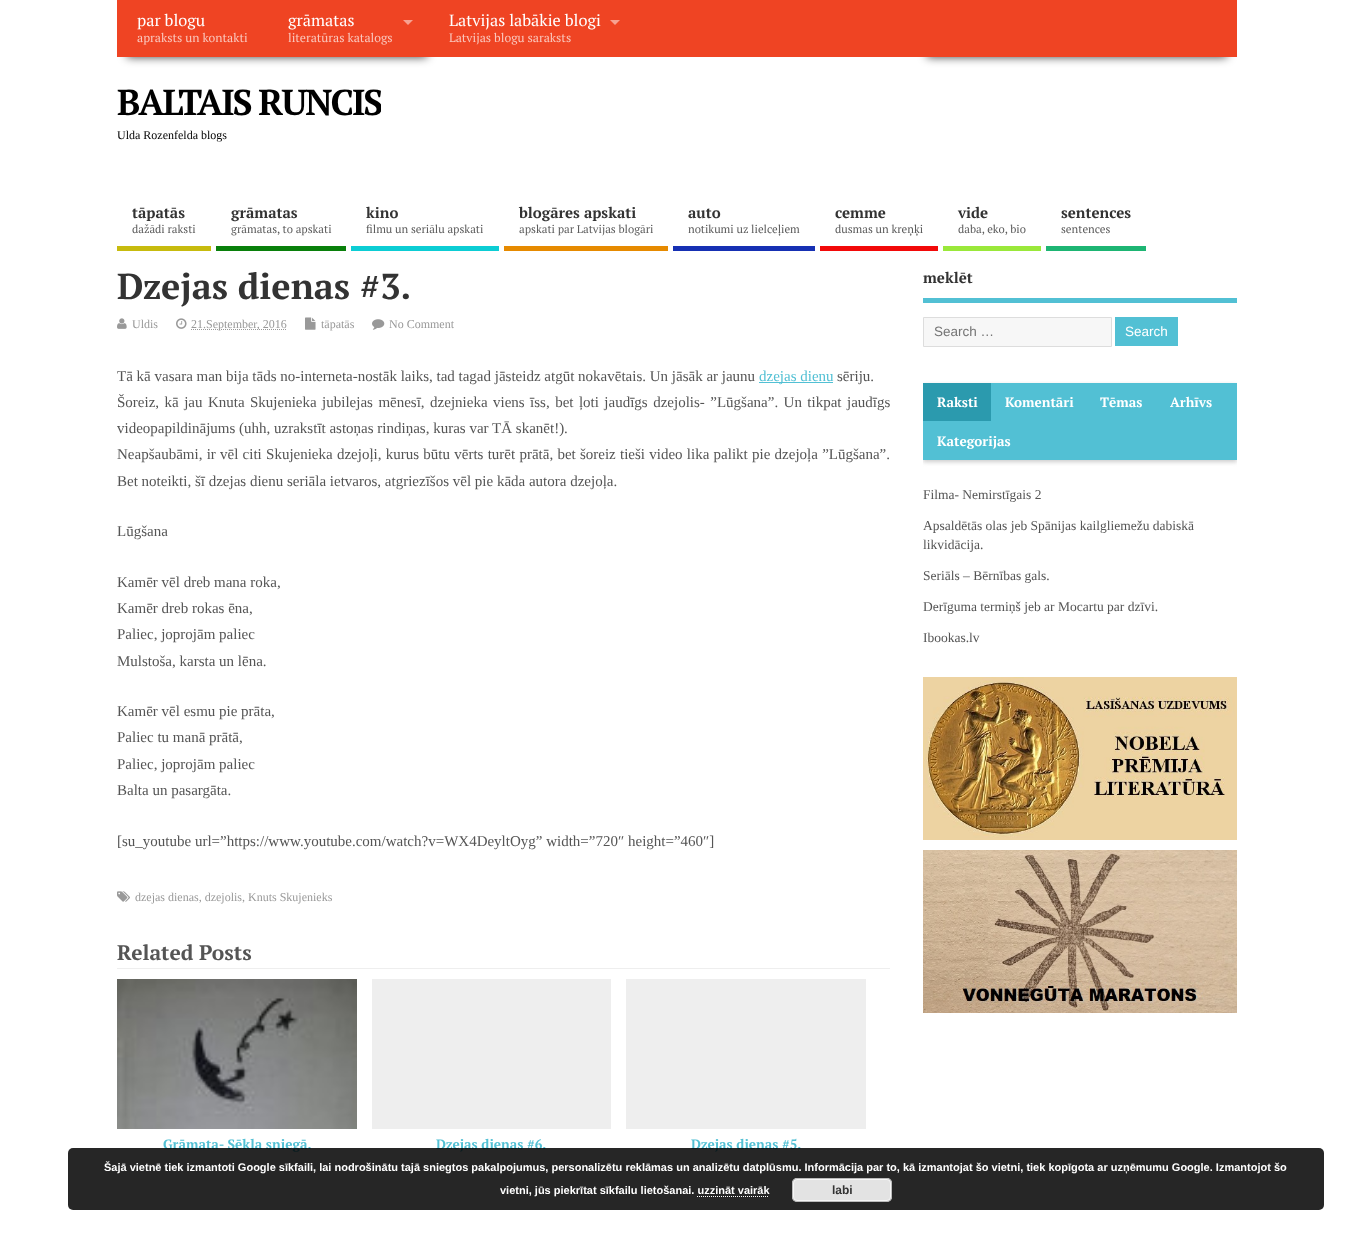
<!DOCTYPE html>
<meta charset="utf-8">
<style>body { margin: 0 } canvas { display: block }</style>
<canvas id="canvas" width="1354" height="1240"></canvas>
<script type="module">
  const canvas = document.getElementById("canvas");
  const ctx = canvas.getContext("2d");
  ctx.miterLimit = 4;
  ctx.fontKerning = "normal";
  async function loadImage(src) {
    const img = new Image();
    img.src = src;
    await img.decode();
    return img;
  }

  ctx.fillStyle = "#ffffff";
  ctx.fillRect(0, 0, 1354, 1240);
  ctx.fillStyle = "rgba(0, 0, 0, 0.75)";
  ctx.filter = "blur(5px)";
  ctx.beginPath();
  ctx.rect(127, 45, 300, 12);
  ctx.fill();
  ctx.filter = "none";
  ctx.filter = "blur(5px)";
  ctx.beginPath();
  ctx.rect(927, 45, 300, 12);
  ctx.fill();
  ctx.filter = "none";
  ctx.fillStyle = "#ef4423";
  ctx.fillRect(117, 0, 1120, 57);
  ctx.font = "16.25px PT Serif";
  ctx.fillStyle = "#ffffff";
  ctx.fillText("par blogu", 137, 26);
  ctx.font = "12.2px PT Serif";
  ctx.fillStyle = "#fac7bd";
  ctx.fillText("apraksts un kontakti", 137, 42);
  ctx.font = "16.25px PT Serif";
  ctx.fillStyle = "#ffffff";
  ctx.fillText("grāmatas", 288, 26);
  ctx.fillStyle = "#f7a291";
  ctx.beginPath();
  ctx.moveTo(403, 20);
  ctx.lineTo(413, 20);
  ctx.lineTo(408, 25);
  ctx.closePath();
  ctx.fill();
  ctx.font = "12.2px PT Serif";
  ctx.fillStyle = "#fac7bd";
  ctx.fillText("literatūras katalogs", 288, 42);
  ctx.font = "16.25px PT Serif";
  ctx.fillStyle = "#ffffff";
  ctx.fillText("Latvijas labākie blogi", 449, 26);
  ctx.fillStyle = "#f7a291";
  ctx.beginPath();
  ctx.moveTo(610, 20);
  ctx.lineTo(620, 20);
  ctx.lineTo(615, 25);
  ctx.closePath();
  ctx.fill();
  ctx.font = "12.2px PT Serif";
  ctx.fillStyle = "#fac7bd";
  ctx.fillText("Latvijas blogu saraksts", 449, 42);
  ctx.save();
  ctx.beginPath();
  ctx.rect(117, 57, 264, 86);
  ctx.clip();
  ctx.letterSpacing = "-2px";
  ctx.font = "bold 36px PT Serif";
  ctx.fillStyle = "#000000";
  ctx.fillText("BALTAIS RUNCIS", 117, 115);
  ctx.restore();
  ctx.font = "12px Liberation Serif";
  ctx.fillStyle = "#000000";
  ctx.fillText("Ulda Rozenfelda blogs", 117, 139);
  ctx.fillStyle = "#c7bb0e";
  ctx.fillRect(117, 246, 94, 5);
  ctx.font = "bold 15px PT Serif";
  ctx.fillStyle = "#333333";
  ctx.fillText("tāpatās", 132, 218);
  ctx.font = "11.25px PT Serif";
  ctx.fillStyle = "#5c5c5c";
  ctx.fillText("dažādi raksti", 132, 233);
  ctx.fillStyle = "#09800b";
  ctx.fillRect(216, 246, 130, 5);
  ctx.font = "bold 15px PT Serif";
  ctx.fillStyle = "#333333";
  ctx.fillText("grāmatas", 231, 218);
  ctx.font = "11.25px PT Serif";
  ctx.fillStyle = "#5c5c5c";
  ctx.fillText("grāmatas, to apskati", 231, 233);
  ctx.fillStyle = "#0ccdd4";
  ctx.fillRect(351, 246, 148, 5);
  ctx.font = "bold 15px PT Serif";
  ctx.fillStyle = "#333333";
  ctx.fillText("kino", 366, 218);
  ctx.font = "11.25px PT Serif";
  ctx.fillStyle = "#5c5c5c";
  ctx.fillText("filmu un seriālu apskati", 366, 233);
  ctx.fillStyle = "#e68a00";
  ctx.fillRect(504, 246, 164, 5);
  ctx.font = "bold 15px PT Serif";
  ctx.fillStyle = "#333333";
  ctx.fillText("blogāres apskati", 519, 218);
  ctx.font = "11.25px PT Serif";
  ctx.fillStyle = "#5c5c5c";
  ctx.fillText("apskati par Latvijas blogāri", 519, 233);
  ctx.fillStyle = "#1630b3";
  ctx.fillRect(673, 246, 142, 5);
  ctx.font = "bold 15px PT Serif";
  ctx.fillStyle = "#333333";
  ctx.fillText("auto", 688, 218);
  ctx.font = "11.25px PT Serif";
  ctx.fillStyle = "#5c5c5c";
  ctx.fillText("notikumi uz lielceļiem", 688, 233);
  ctx.fillStyle = "#f20909";
  ctx.fillRect(820, 246, 118, 5);
  ctx.font = "bold 15px PT Serif";
  ctx.fillStyle = "#333333";
  ctx.fillText("cemme", 835, 218);
  ctx.font = "11.25px PT Serif";
  ctx.fillStyle = "#5c5c5c";
  ctx.fillText("dusmas un kreņķi", 835, 233);
  ctx.fillStyle = "#9ae83a";
  ctx.fillRect(943, 246, 98, 5);
  ctx.font = "bold 15px PT Serif";
  ctx.fillStyle = "#333333";
  ctx.fillText("vide", 958, 218);
  ctx.font = "11.25px PT Serif";
  ctx.fillStyle = "#5c5c5c";
  ctx.fillText("daba, eko, bio", 958, 233);
  ctx.fillStyle = "#1db573";
  ctx.fillRect(1046, 246, 100, 5);
  ctx.font = "bold 15px PT Serif";
  ctx.fillStyle = "#333333";
  ctx.fillText("sentences", 1061, 218);
  ctx.font = "11.25px PT Serif";
  ctx.fillStyle = "#5c5c5c";
  ctx.fillText("sentences", 1061, 233);
  ctx.font = "bold 36px PT Serif";
  ctx.fillStyle = "#333333";
  ctx.fillText("Dzejas dienas #3.", 117, 299);
  ctx.drawImage(await loadImage("img1.png"), 117, 318, 10, 11);
  ctx.font = "12px Liberation Serif";
  ctx.fillStyle = "#999999";
  ctx.fillText("Uldis", 132, 328);
  ctx.drawImage(await loadImage("img2.png"), 176, 318, 11, 11);
  ctx.beginPath();
  ctx.moveTo(191, 329.5);
  ctx.lineTo(287, 329.5);
  ctx.strokeStyle = "#999999";
  ctx.setLineDash([1, 1]);
  ctx.stroke();
  ctx.fillText("21.September, 2016", 191, 328);
  ctx.drawImage(await loadImage("img3.png"), 305, 317, 11, 13);
  ctx.fillText("tāpatās", 321, 328);
  ctx.drawImage(await loadImage("img4.png"), 372, 319, 13, 11);
  ctx.fillText("No Comment", 389, 328);
  ctx.font = "15px Liberation Serif";
  ctx.fillStyle = "#555555";
  ctx.fillText("Tā kā vasara man bija tāds no-interneta-nostāk laiks, tad tagad jāsteidz atgūt nokavētais. Un jāsāk ar jaunu", 117, 381);
  ctx.fillStyle = "#52c0d4";
  ctx.fillRect(759, 382, 74, 1);
  ctx.fillText("dzejas dienu", 759, 381);
  ctx.fillStyle = "#555555";
  ctx.fillText("sēriju.", 837, 381);
  ctx.wordSpacing = "1.7px";
  ctx.fillText("Šoreiz, kā jau Knuta Skujenieka jubilejas mēnesī, dzejnieka viens īss, bet ļoti jaudīgs dzejolis- ”Lūgšana”. Un tikpat jaudīgs", 117, 407);
  ctx.wordSpacing = "0px";
  ctx.fillText("videopapildinājums (uhh, uzrakstīt astoņas rindiņas, kuras var TĀ skanēt!).", 117, 433);
  ctx.wordSpacing = "0.5px";
  ctx.fillText("Neapšaubāmi, ir vēl citi Skujenieka dzejoļi, kurus būtu vērts turēt prātā, bet šoreiz tieši video lika palikt pie dzejoļa ”Lūgšana”.", 117, 459);
  ctx.wordSpacing = "0px";
  ctx.fillText("Bet noteikti, šī dzejas dienu seriāla ietvaros, atgriezīšos vēl pie kāda autora dzejoļa.", 117, 486);
  ctx.fillText("Lūgšana", 117, 536);
  ctx.fillText("Kamēr vēl dreb mana roka,", 117, 587);
  ctx.fillText("Kamēr dreb rokas ēna,", 117, 613);
  ctx.fillText("Paliec, joprojām paliec", 117, 639);
  ctx.fillText("Mulstoša, karsta un lēna.", 117, 666);
  ctx.fillText("Kamēr vēl esmu pie prāta,", 117, 716);
  ctx.fillText("Paliec tu manā prātā,", 117, 742);
  ctx.fillText("Paliec, joprojām paliec", 117, 769);
  ctx.fillText("Balta un pasargāta.", 117, 795);
  ctx.fillText("[su_youtube url=”https://www.youtube.com/watch?v=WX4DeyltOyg” width=”720″ height=”460″]", 117, 846);
  ctx.drawImage(await loadImage("img5.png"), 117, 891, 13, 11);
  ctx.font = "12px Liberation Serif";
  ctx.fillStyle = "#999999";
  ctx.fillText("dzejas dienas, dzejolis, Knuts Skujenieks", 135, 901);
  ctx.fillStyle = "#eeeeee";
  ctx.fillRect(117, 968, 773, 1);
  ctx.font = "bold 21px PT Serif";
  ctx.fillStyle = "#555555";
  ctx.fillText("Related Posts", 117, 960);
  ctx.drawImage(await loadImage("img6.png"), 117, 979, 240, 150);
  ctx.font = "bold 13.5px PT Serif";
  ctx.fillStyle = "#52c0d4";
  ctx.fillText("Grāmata- Sēkla sniegā.", 163, 1149);
  ctx.fillStyle = "#eeeeee";
  ctx.fillRect(372, 979, 239, 150);
  ctx.fillStyle = "#52c0d4";
  ctx.fillText("Dzejas dienas #6.", 436, 1149);
  ctx.fillStyle = "#eeeeee";
  ctx.fillRect(626, 979, 240, 150);
  ctx.fillStyle = "#52c0d4";
  ctx.fillText("Dzejas dienas #5.", 691, 1149);
  ctx.fillRect(923, 298, 314, 5);
  ctx.font = "bold 15px PT Serif";
  ctx.fillStyle = "#333333";
  ctx.fillText("meklēt", 923, 283);
  ctx.fillStyle = "#f7f7f7";
  ctx.beginPath();
  ctx.rect(923.5, 317.5, 188, 29);
  ctx.fill();
  ctx.strokeStyle = "#dddddd";
  ctx.setLineDash([]);
  ctx.stroke();
  ctx.font = "13.5px Liberation Sans";
  ctx.fillStyle = "#757575";
  ctx.fillText("Search …", 934, 336);
  ctx.fillStyle = "#52c0d4";
  ctx.fillRect(1115, 317, 63, 29);
  ctx.fillStyle = "#ffffff";
  ctx.fillText("Search", 1125, 336);
  ctx.save();
  ctx.beginPath();
  ctx.rect(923, 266, 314, 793);
  ctx.clip();
  ctx.fillStyle = "#cccccc";
  ctx.filter = "blur(2px)";
  ctx.beginPath();
  ctx.rect(923, 385, 314, 77);
  ctx.fill();
  ctx.filter = "none";
  ctx.restore();
  ctx.fillStyle = "#52c0d4";
  ctx.fillRect(923, 383, 314, 77);
  ctx.fillStyle = "#2b9aae";
  ctx.fillRect(923, 383, 68, 38);
  ctx.font = "bold 13.5px PT Serif";
  ctx.fillStyle = "#ffffff";
  ctx.fillText("Raksti", 937, 407);
  ctx.fillText("Komentāri", 1005, 407);
  ctx.fillText("Tēmas", 1100, 407);
  ctx.fillText("Arhīvs", 1170, 407);
  ctx.fillText("Kategorijas", 937, 446);
  ctx.font = "13.5px Liberation Serif";
  ctx.fillStyle = "#555555";
  ctx.fillText("Filma- Nemirstīgais 2", 923, 499);
  ctx.fillText("Apsaldētās olas jeb Spānijas kailgliemežu dabiskā", 923, 530);
  ctx.fillText("likvidācija.", 923, 549);
  ctx.fillText("Seriāls – Bērnības gals.", 923, 580);
  ctx.fillText("Derīguma termiņš jeb ar Mocartu par dzīvi.", 923, 611);
  ctx.fillText("Ibookas.lv", 923, 642);
  ctx.drawImage(await loadImage("img7.png"), 923, 677, 314, 163);
  ctx.drawImage(await loadImage("img8.png"), 923, 850, 314, 163);
  ctx.fillStyle = "rgba(0, 0, 0, 0.85)";
  ctx.beginPath();
  ctx.roundRect(68, 1148, 1256, 62, 5);
  ctx.fill();
  ctx.font = "bold 11px Liberation Sans";
  ctx.fillStyle = "#ffffff";
  ctx.fillText("Šajā vietnē tiek izmantoti Google sīkfaili, lai nodrošinātu tajā sniegtos pakalpojumus, personalizētu reklāmas un analizētu datplūsmu. Informācija par to, kā izmantojat šo vietni, tiek kopīgota ar uzņēmumu Google. Izmantojot šo", 104, 1171);
  ctx.fillText("vietni, jūs piekrītat sīkfailu lietošanai. uzzināt vairāk", 500, 1194);
  ctx.fillStyle = "#e3e3e3";
  ctx.beginPath();
  ctx.roundRect(792, 1178, 100, 24, 5);
  ctx.fill();
  ctx.beginPath();
  ctx.roundRect(793.5, 1179.5, 97, 21, 3.5);
  ctx.strokeStyle = "#f6f6f6";
  ctx.stroke();
  ctx.beginPath();
  ctx.roundRect(792.5, 1178.5, 99, 23, 4.5);
  ctx.strokeStyle = "#bbbbbb";
  ctx.stroke();
  ctx.font = "bold 12px Liberation Sans";
  ctx.fillStyle = "#333333";
  ctx.fillText("labi", 832, 1194);
  ctx.beginPath();
  ctx.moveTo(697, 1196.5);
  ctx.lineTo(769, 1196.5);
  ctx.strokeStyle = "#ffffff";
  ctx.setLineDash([1, 1]);
  ctx.stroke();
</script>
